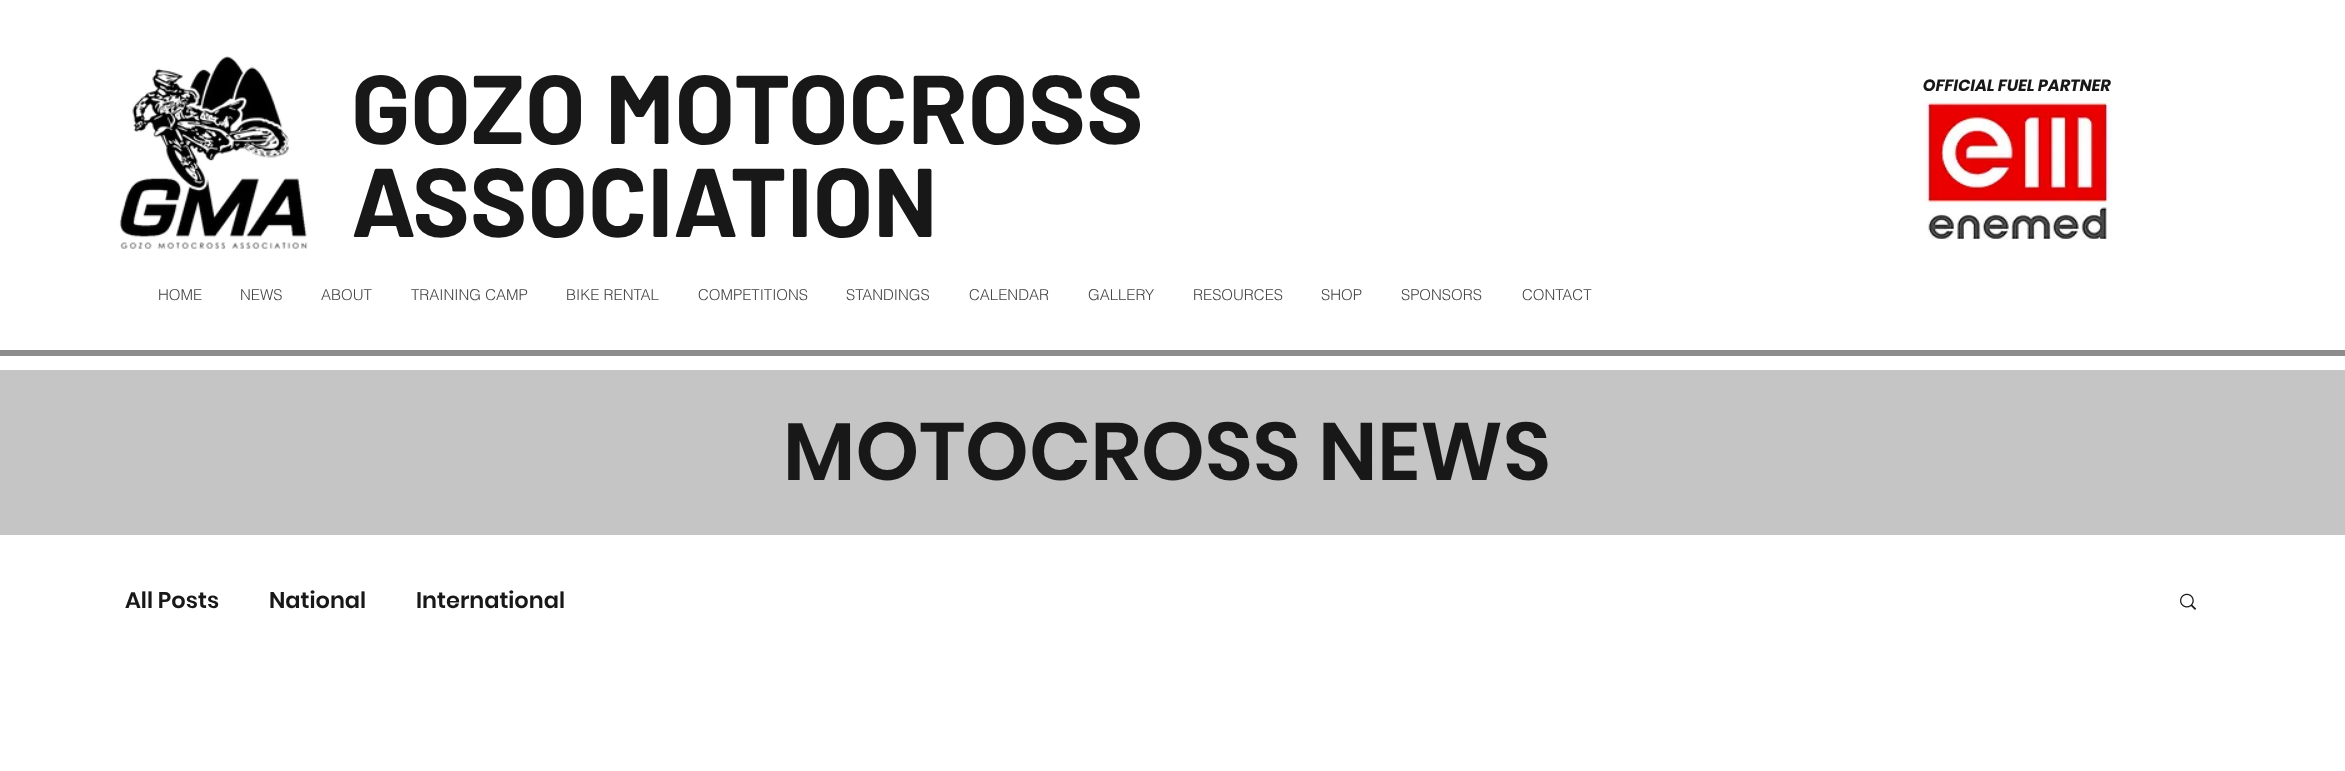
<!DOCTYPE html>
<meta charset="utf-8">
<style>body { margin: 0 } canvas { display: block }</style>
<canvas id="canvas" width="2345" height="771"></canvas>
<script type="module">
  const canvas = document.getElementById("canvas");
  const ctx = canvas.getContext("2d");
  ctx.miterLimit = 4;
  ctx.fontKerning = "normal";
  async function loadImage(src) {
    const img = new Image();
    img.src = src;
    await img.decode();
    return img;
  }

  ctx.fillStyle = "#ffffff";
  ctx.fillRect(0, 0, 2345, 771);
  ctx.drawImage(await loadImage("img1.png"), 119, 56, 189, 193);
  ctx.font = "bold 97.5px Barlow";
  ctx.fillStyle = "#181818";
  ctx.fillText("GOZO MOTOCROSS", 351, 144);
  ctx.fillText("ASSOCIATION", 351, 237);
  ctx.font = "300 15px helvetica";
  ctx.fillStyle = "#444444";
  ctx.fillText("HOME", 158, 300);
  ctx.fillText("NEWS", 240, 300);
  ctx.fillText("ABOUT", 321, 300);
  ctx.fillText("TRAINING CAMP", 411, 300);
  ctx.fillText("BIKE RENTAL", 566, 300);
  ctx.fillText("COMPETITIONS", 698, 300);
  ctx.fillText("STANDINGS", 846, 300);
  ctx.fillText("CALENDAR", 969, 300);
  ctx.fillText("GALLERY", 1088, 300);
  ctx.fillText("RESOURCES", 1193, 300);
  ctx.fillText("SHOP", 1321, 300);
  ctx.fillText("SPONSORS", 1401, 300);
  ctx.fillText("CONTACT", 1522, 300);
  ctx.font = "italic bold 16.25px Poppins";
  ctx.fillStyle = "#181818";
  ctx.fillText("OFFICIAL FUEL PARTNER", 1923, 91);
  ctx.drawImage(await loadImage("img2.png"), 1923, 99, 189, 140);
  ctx.fillStyle = "#8c8c8c";
  ctx.fillRect(0, 350, 2345, 6);
  ctx.fillStyle = "#c5c5c5";
  ctx.fillRect(0, 370, 2345, 165);
  ctx.font = "600 81.25px Poppins";
  ctx.fillStyle = "#181818";
  ctx.fillText("MOTOCROSS NEWS", 783, 480);
  ctx.font = "600 22.5px Poppins";
  ctx.fillText("All Posts", 125, 608);
  ctx.fillText("National", 269, 608);
  ctx.fillText("International", 416, 608);
  ctx.drawImage(await loadImage("img3.png"), 2180, 593, 17, 17);
</script>
